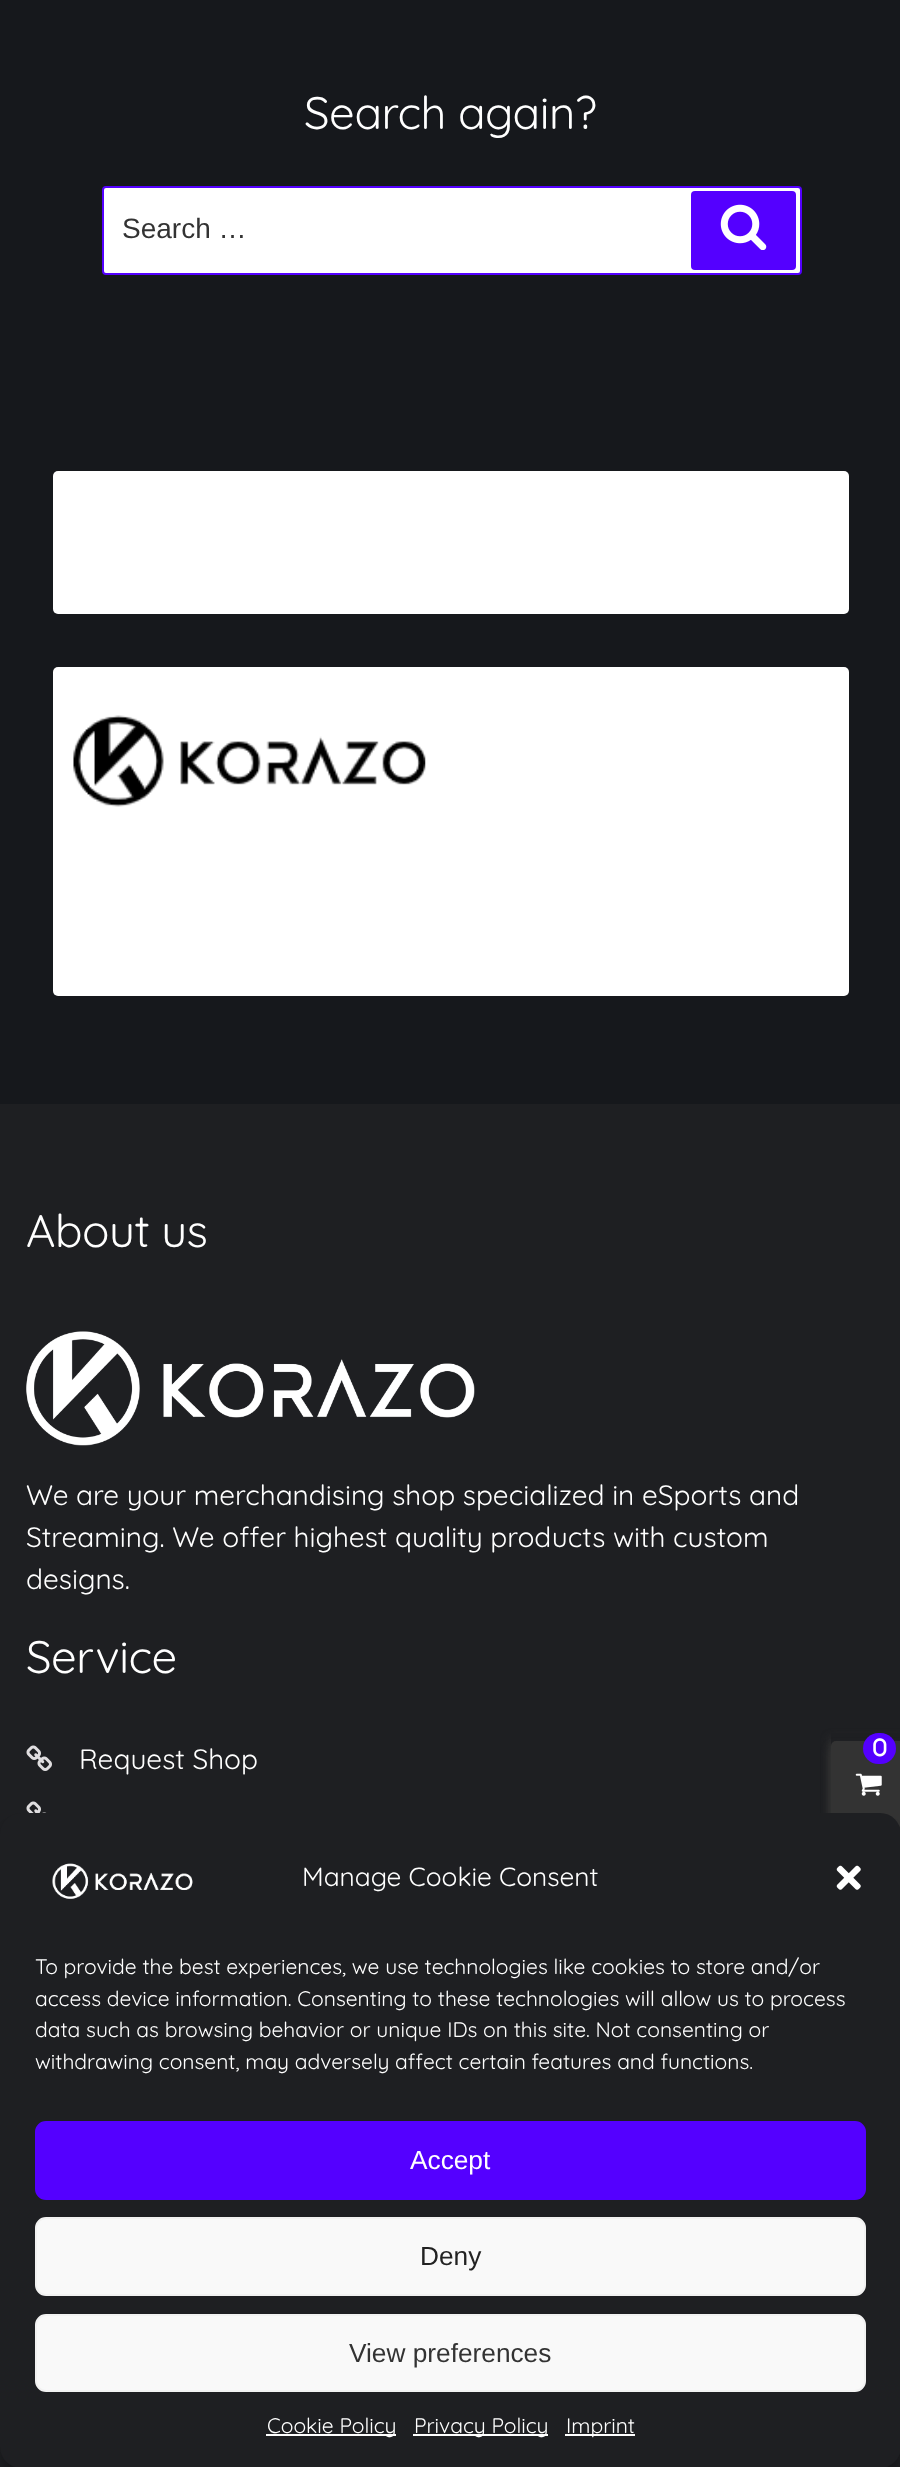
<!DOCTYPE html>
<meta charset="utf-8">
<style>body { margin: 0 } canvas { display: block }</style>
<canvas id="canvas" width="900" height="2467"></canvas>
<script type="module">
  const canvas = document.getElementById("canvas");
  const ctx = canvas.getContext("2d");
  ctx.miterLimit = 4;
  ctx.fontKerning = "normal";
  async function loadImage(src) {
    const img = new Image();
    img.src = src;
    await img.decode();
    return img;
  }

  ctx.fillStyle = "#16181c";
  ctx.fillRect(0, 0, 900, 2467);
  ctx.letterSpacing = "-0.5px";
  ctx.font = "300 45.5px Quicksand";
  ctx.fillStyle = "#ffffff";
  ctx.fillText("Search again?", 304, 129);
  ctx.beginPath();
  ctx.roundRect(103, 187, 698, 87, 3);
  ctx.fill();
  ctx.strokeStyle = "#5400ff";
  ctx.lineWidth = 2;
  ctx.stroke();
  ctx.letterSpacing = "0px";
  ctx.font = "28px Liberation Sans";
  ctx.fillStyle = "#333333";
  ctx.fillText("Search …", 122, 238);
  ctx.fillStyle = "#5400ff";
  ctx.beginPath();
  ctx.roundRect(691, 191, 105, 79, 4);
  ctx.fill();
  ctx.drawImage(await loadImage("img1.png"), 720, 204, 47, 46);
  ctx.fillStyle = "#ffffff";
  ctx.beginPath();
  ctx.roundRect(53, 471, 796, 143, 5);
  ctx.fill();
  ctx.beginPath();
  ctx.roundRect(53, 667, 796, 329, 5);
  ctx.fill();
  ctx.drawImage(await loadImage("img2.png"), 73, 715, 353, 92);
  ctx.fillStyle = "#1e1f22";
  ctx.fillRect(0, 1104, 900, 1363);
  ctx.letterSpacing = "-0.5px";
  ctx.font = "300 45.5px Quicksand";
  ctx.fillStyle = "#ffffff";
  ctx.fillText("About us", 26, 1247);
  ctx.drawImage(await loadImage("img3.png"), 26, 1331, 449, 115);
  ctx.letterSpacing = "0px";
  ctx.font = "300 28px Quicksand";
  ctx.fillText("We are your merchandising shop specialized in eSports and", 26, 1505);
  ctx.fillText("Streaming. We offer highest quality products with custom", 26, 1547);
  ctx.fillText("designs.", 26, 1589);
  ctx.letterSpacing = "-0.5px";
  ctx.font = "300 45.5px Quicksand";
  ctx.fillText("Service", 26, 1673);
  ctx.drawImage(await loadImage("img4.png"), 26, 1745, 26, 26);
  ctx.letterSpacing = "0px";
  ctx.font = "300 28px Quicksand";
  ctx.fillText("Request Shop", 79, 1769);
  ctx.drawImage(await loadImage("img5.png"), 26, 1801, 21, 12);
  ctx.save();
  ctx.beginPath();
  ctx.moveTo(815, 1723);
  ctx.lineTo(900, 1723);
  ctx.lineTo(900, 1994);
  ctx.lineTo(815, 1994);
  ctx.closePath();
  ctx.moveTo(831, 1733);
  ctx.lineTo(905, 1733);
  ctx.lineTo(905, 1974);
  ctx.lineTo(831, 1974);
  ctx.closePath();
  ctx.clip("evenodd");
  ctx.fillStyle = "#333333";
  ctx.filter = "blur(4.5px)";
  ctx.beginPath();
  ctx.rect(830, 1738, 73, 241);
  ctx.fill();
  ctx.filter = "none";
  ctx.restore();
  ctx.fillStyle = "#333333";
  ctx.filter = "blur(4.5px)";
  ctx.beginPath();
  ctx.roundRect(830, 1747, 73, 127, 5);
  ctx.fill();
  ctx.filter = "none";
  ctx.beginPath();
  ctx.roundRect(831, 1741, 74, 128, 5);
  ctx.fill();
  ctx.fillStyle = "rgba(0, 0, 0, 0.23)";
  ctx.filter = "blur(5px)";
  ctx.beginPath();
  ctx.roundRect(0, 1824, 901, 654, 21);
  ctx.fill();
  ctx.filter = "none";
  ctx.fillStyle = "#1e1f22";
  ctx.beginPath();
  ctx.roundRect(0, 1813, 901, 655, 21);
  ctx.fill();
  ctx.drawImage(await loadImage("img6.png"), 52, 1863, 141, 36);
  ctx.font = "300 26.25px Quicksand";
  ctx.fillStyle = "#ffffff";
  ctx.fillText("Manage Cookie Consent", 302, 1886);
  ctx.drawImage(await loadImage("img7.png"), 836, 1865, 25, 25);
  ctx.font = "300 21px Quicksand";
  ctx.fillText("To provide the best experiences, we use technologies like cookies to store and/or", 35, 1974);
  ctx.fillText("access device information. Consenting to these technologies will allow us to process", 35, 2006);
  ctx.fillText("data such as browsing behavior or unique IDs on this site. Not consenting or", 35, 2037);
  ctx.fillText("withdrawing consent, may adversely affect certain features and functions.", 35, 2069);
  ctx.fillStyle = "#5400ff";
  ctx.beginPath();
  ctx.roundRect(36, 2122, 829, 77, 10);
  ctx.fill();
  ctx.stroke();
  ctx.font = "26.25px Liberation Sans";
  ctx.fillStyle = "#ffffff";
  ctx.fillText("Accept", 410, 2169);
  ctx.fillStyle = "#f9f9f9";
  ctx.beginPath();
  ctx.roundRect(36, 2218, 829, 77, 10);
  ctx.fill();
  ctx.strokeStyle = "#f2f2f2";
  ctx.stroke();
  ctx.fillStyle = "#222222";
  ctx.fillText("Deny", 420, 2265);
  ctx.fillStyle = "#f9f9f9";
  ctx.beginPath();
  ctx.roundRect(36, 2315, 829, 76, 10);
  ctx.fill();
  ctx.stroke();
  ctx.fillStyle = "#333333";
  ctx.fillText("View preferences", 349, 2362);
  ctx.fillStyle = "#ffffff";
  ctx.fillRect(266, 2434, 130, 2);
  ctx.font = "300 21px Quicksand";
  ctx.fillText("Cookie Policy", 267, 2433);
  ctx.fillRect(413, 2434, 135, 2);
  ctx.fillText("Privacy Policy", 414, 2433);
  ctx.fillRect(565, 2434, 70, 2);
  ctx.fillText("Imprint", 566, 2433);
  ctx.fillStyle = "#5400ff";
  ctx.beginPath();
  ctx.roundRect(863, 1733, 33, 31, 15.5);
  ctx.fill();
  ctx.drawImage(await loadImage("img8.png"), 873, 1738, 14, 19);
  ctx.drawImage(await loadImage("img9.png"), 855, 1773, 27, 23);
</script>
